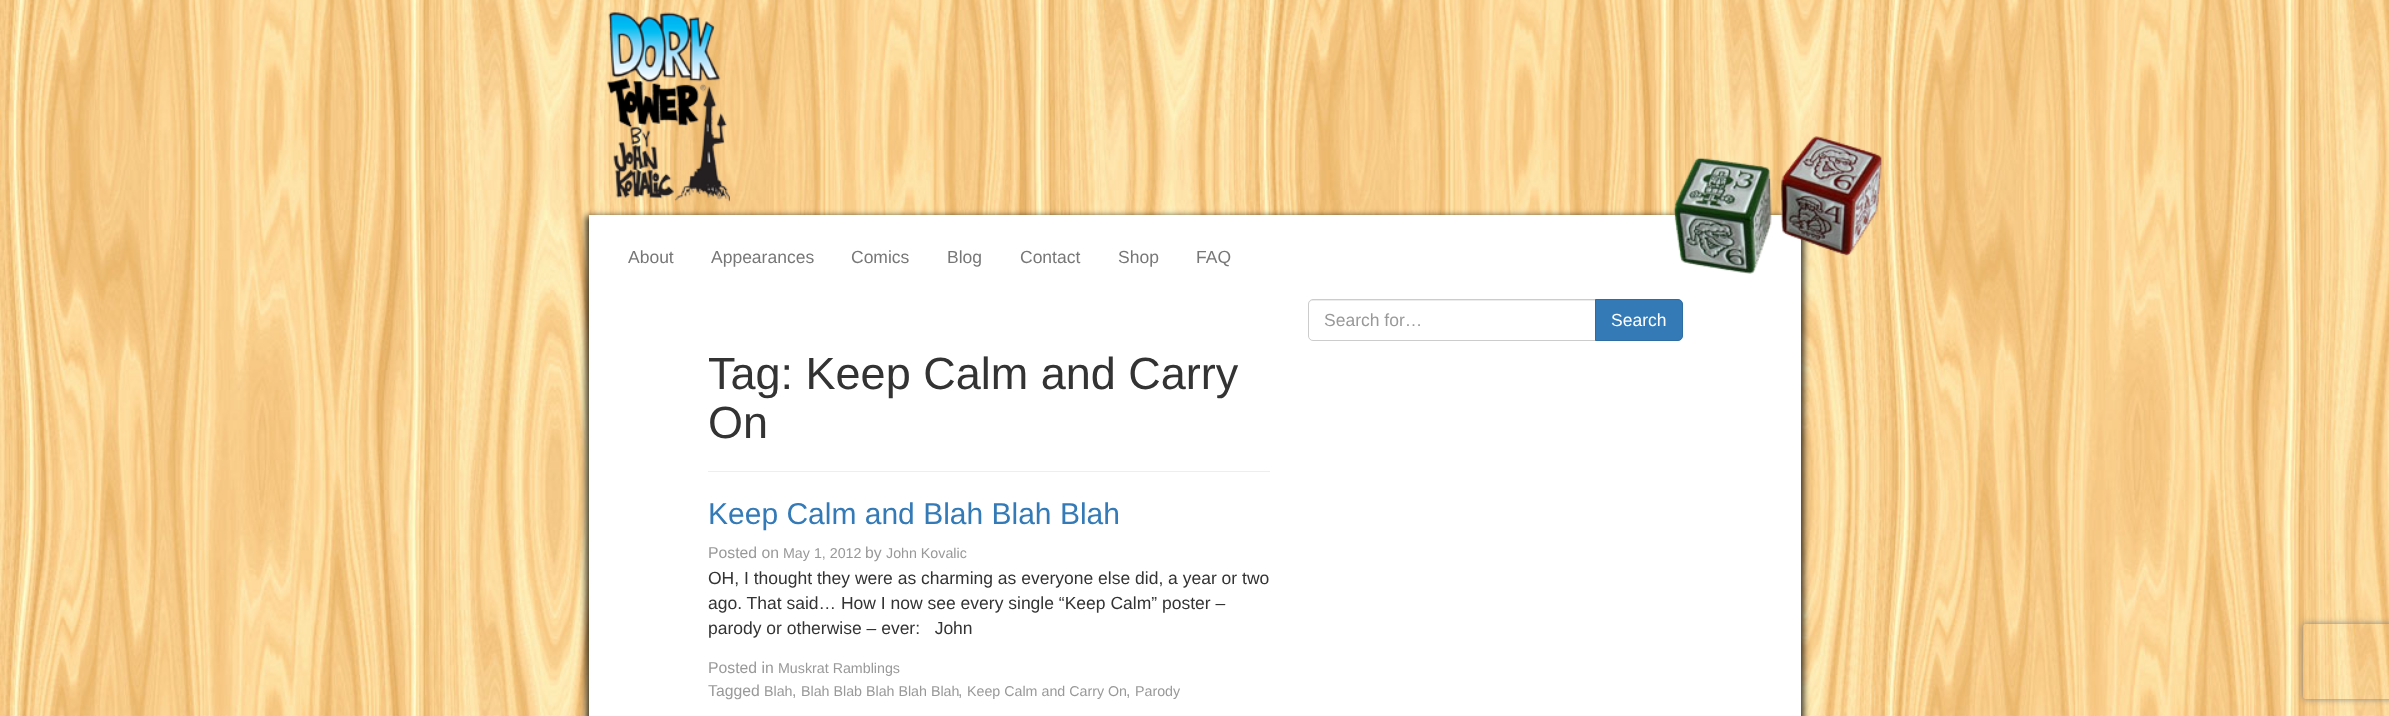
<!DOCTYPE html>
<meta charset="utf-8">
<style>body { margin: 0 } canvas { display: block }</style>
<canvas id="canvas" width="2389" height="716"></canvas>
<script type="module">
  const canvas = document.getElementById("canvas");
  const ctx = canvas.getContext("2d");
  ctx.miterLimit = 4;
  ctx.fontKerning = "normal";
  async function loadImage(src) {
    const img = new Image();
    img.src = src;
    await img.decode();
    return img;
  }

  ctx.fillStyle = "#ffffff";
  ctx.fillRect(0, 0, 2389, 716);
  ctx.drawImage(await loadImage("img1.png"), 0, 0, 2389, 716);
  ctx.drawImage(await loadImage("img2.png"), 607, 12, 123, 190);
  ctx.fillStyle = "rgba(0, 0, 0, 0.75)";
  ctx.filter = "blur(3px)";
  ctx.beginPath();
  ctx.rect(586, 216, 1218, 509);
  ctx.fill();
  ctx.filter = "none";
  ctx.fillStyle = "#ffffff";
  ctx.fillRect(589, 215, 1212, 501);
  ctx.drawImage(await loadImage("img3.png"), 1673, 136, 209, 138);
  ctx.font = "17.5px Liberation Sans";
  ctx.fillStyle = "#777777";
  ctx.fillText("About", 628, 263);
  ctx.fillText("Appearances", 711, 263);
  ctx.fillText("Comics", 851, 263);
  ctx.fillText("Blog", 947, 263);
  ctx.fillText("Contact", 1020, 263);
  ctx.fillText("Shop", 1118, 263);
  ctx.fillText("FAQ", 1196, 263);
  ctx.fillStyle = "#ececec";
  ctx.beginPath();
  ctx.moveTo(1312, 301);
  ctx.lineTo(1595, 301);
  ctx.lineTo(1595, 300);
  ctx.lineTo(1313, 300);
  ctx.bezierCurveTo(1310, 300, 1309, 302, 1309, 305);
  ctx.bezierCurveTo(1309, 303, 1310, 301, 1312, 301);
  ctx.closePath();
  ctx.fill();
  ctx.beginPath();
  ctx.roundRect(1308.5, 299.5, 287, 41, [4.5, 0, 0, 4.5]);
  ctx.strokeStyle = "#cccccc";
  ctx.stroke();
  ctx.fillStyle = "#999999";
  ctx.fillText("Search for…", 1324, 326);
  ctx.fillStyle = "#337ab7";
  ctx.beginPath();
  ctx.roundRect(1595.5, 299.5, 87, 41, [0, 4.5, 4.5, 0]);
  ctx.fill();
  ctx.strokeStyle = "#2e6da4";
  ctx.stroke();
  ctx.fillStyle = "#ffffff";
  ctx.fillText("Search", 1611, 326);
  ctx.fillStyle = "#eeeeee";
  ctx.fillRect(708, 471, 562, 1);
  ctx.font = "45px Liberation Sans";
  ctx.fillStyle = "#333333";
  ctx.fillText("Tag: Keep Calm and Carry", 708, 389);
  ctx.fillText("On", 708, 438);
  ctx.font = "30px Liberation Sans";
  ctx.fillStyle = "#337ab7";
  ctx.fillText("Keep Calm and Blah Blah Blah", 708, 524);
  ctx.font = "15.75px Liberation Sans";
  ctx.fillStyle = "#999999";
  ctx.fillText("Posted on", 708, 558);
  ctx.font = "14.25px Liberation Sans";
  ctx.fillText("May 1, 2012", 783, 558);
  ctx.font = "15.75px Liberation Sans";
  ctx.fillText("by", 865, 558);
  ctx.font = "14.25px Liberation Sans";
  ctx.fillText("John Kovalic", 886, 558);
  ctx.font = "17.5px Liberation Sans";
  ctx.fillStyle = "#333333";
  ctx.fillText("OH, I thought they were as charming as everyone else did, a year or two", 708, 584);
  ctx.fillText("ago. That said… How I now see every single “Keep Calm” poster –", 708, 609);
  ctx.fillText("parody or otherwise – ever:   John", 708, 634);
  ctx.font = "15.75px Liberation Sans";
  ctx.fillStyle = "#999999";
  ctx.fillText("Posted in", 708, 673);
  ctx.font = "14.25px Liberation Sans";
  ctx.fillText("Muskrat Ramblings", 778, 673);
  ctx.font = "15.75px Liberation Sans";
  ctx.fillText("Tagged", 708, 696);
  ctx.font = "14.25px Liberation Sans";
  ctx.fillText("Blah", 764, 696);
  ctx.font = "15.75px Liberation Sans";
  ctx.fillText(",", 792, 696);
  ctx.font = "14.25px Liberation Sans";
  ctx.fillText("Blah Blab Blah Blah Blah", 801, 696);
  ctx.font = "15.75px Liberation Sans";
  ctx.fillText(",", 958, 696);
  ctx.font = "14.25px Liberation Sans";
  ctx.fillText("Keep Calm and Carry On", 967, 696);
  ctx.font = "15.75px Liberation Sans";
  ctx.fillText(",", 1126, 696);
  ctx.font = "14.25px Liberation Sans";
  ctx.fillText("Parody", 1135, 696);
  ctx.save();
  ctx.beginPath();
  ctx.moveTo(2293, 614);
  ctx.lineTo(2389, 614);
  ctx.lineTo(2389, 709);
  ctx.lineTo(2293, 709);
  ctx.closePath();
  ctx.moveTo(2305.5, 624);
  ctx.lineTo(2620.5, 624);
  ctx.bezierCurveTo(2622, 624, 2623, 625, 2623, 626.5);
  ctx.lineTo(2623, 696.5);
  ctx.bezierCurveTo(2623, 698, 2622, 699, 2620.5, 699);
  ctx.lineTo(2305.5, 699);
  ctx.bezierCurveTo(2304, 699, 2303, 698, 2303, 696.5);
  ctx.lineTo(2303, 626.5);
  ctx.bezierCurveTo(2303, 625, 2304, 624, 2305.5, 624);
  ctx.closePath();
  ctx.clip("evenodd");
  ctx.fillStyle = "#808080";
  ctx.filter = "blur(3px)";
  ctx.beginPath();
  ctx.roundRect(2303, 624, 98, 75, 2.5);
  ctx.fill();
  ctx.filter = "none";
  ctx.restore();
</script>
